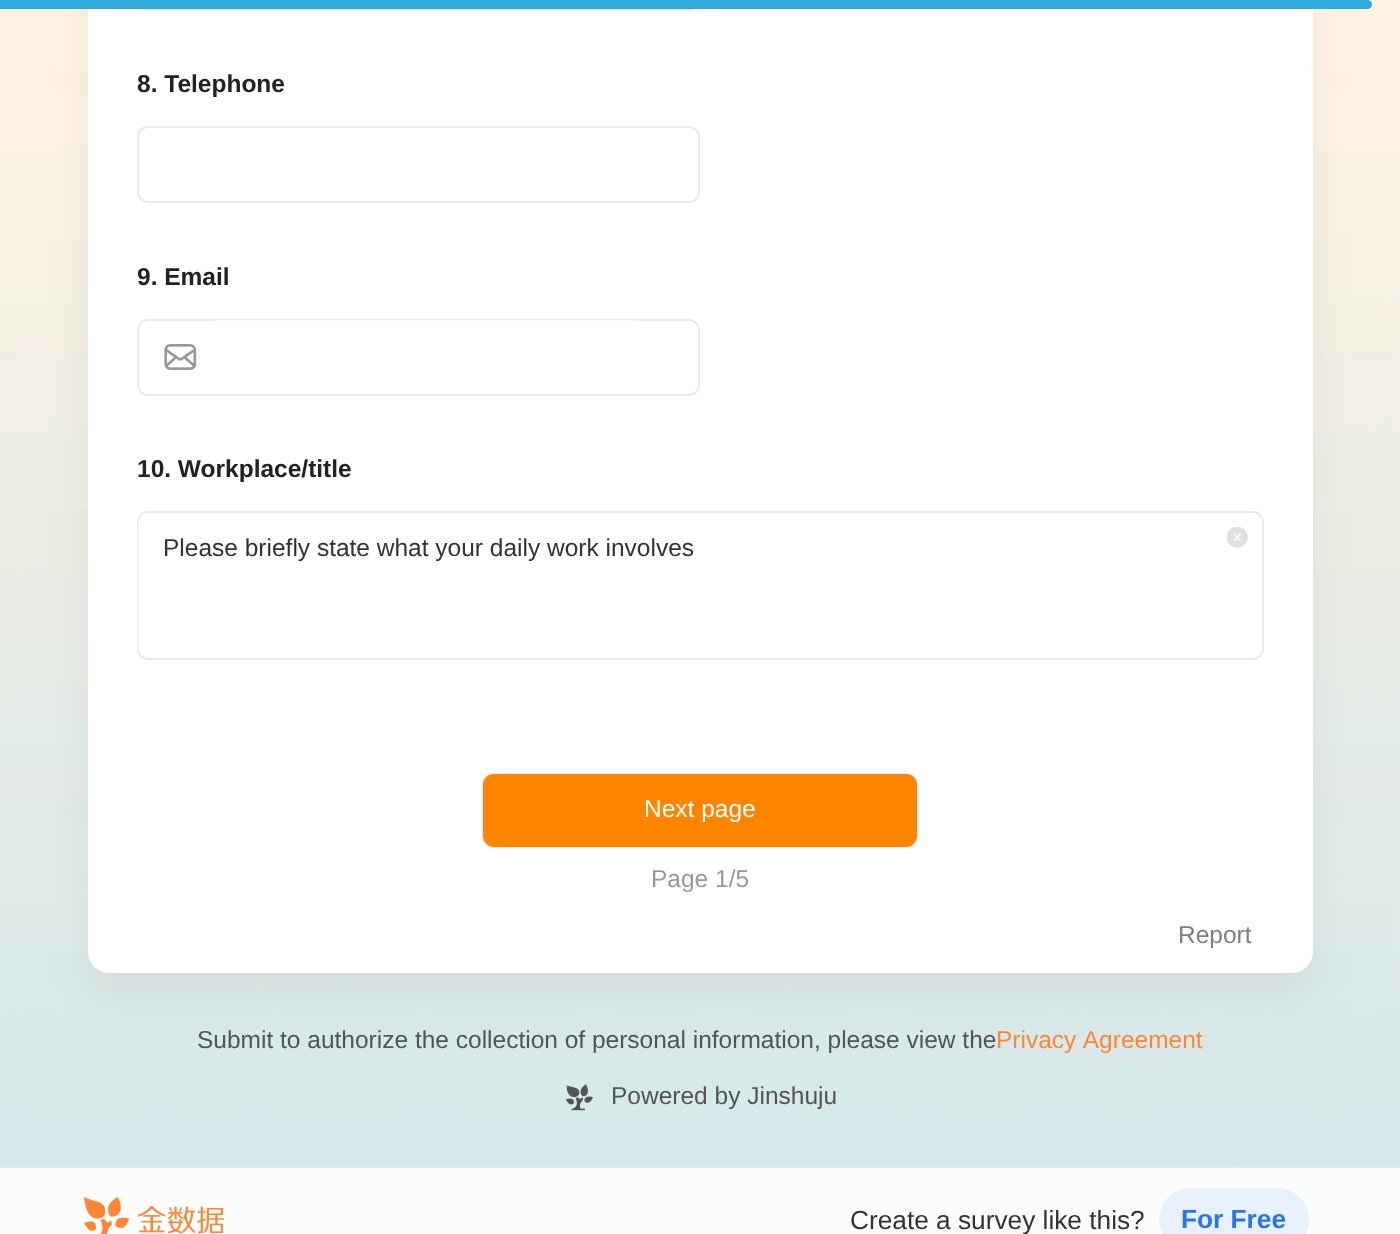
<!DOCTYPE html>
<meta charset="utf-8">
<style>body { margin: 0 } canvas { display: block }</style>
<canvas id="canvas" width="1400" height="1234"></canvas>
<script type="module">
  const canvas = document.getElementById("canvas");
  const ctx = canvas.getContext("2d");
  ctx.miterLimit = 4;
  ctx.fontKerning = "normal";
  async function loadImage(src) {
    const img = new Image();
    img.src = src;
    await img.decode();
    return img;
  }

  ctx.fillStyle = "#ffffff";
  ctx.fillRect(0, 0, 1400, 1234);
  ctx.drawImage(await loadImage("img1.png"), 0, 0, 1400, 1234);
  ctx.fillStyle = "rgba(0, 0, 0, 0.05)";
  ctx.filter = "blur(21px)";
  ctx.beginPath();
  ctx.roundRect(88, -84, 1225, 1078, 21);
  ctx.fill();
  ctx.filter = "none";
  ctx.fillStyle = "#ffffff";
  ctx.beginPath();
  ctx.roundRect(88, -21, 1225, 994, 21);
  ctx.fill();
  ctx.beginPath();
  ctx.roundRect(138, -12, 561, 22, 10);
  ctx.strokeStyle = "#eaeaea";
  ctx.lineWidth = 2;
  ctx.stroke();
  ctx.fillStyle = "#2eaadd";
  ctx.beginPath();
  ctx.roundRect(0, 0, 1372, 9, [0, 4.5, 4.5, 0]);
  ctx.fill();
  ctx.font = "bold 24.5px Liberation Sans";
  ctx.fillStyle = "#222222";
  ctx.fillText("8. Telephone", 137, 92);
  ctx.beginPath();
  ctx.roundRect(138, 127, 561, 75, 10);
  ctx.stroke();
  ctx.fillText("9. Email", 137, 285);
  ctx.beginPath();
  ctx.roundRect(138, 320, 561, 75, 10);
  ctx.stroke();
  ctx.drawImage(await loadImage("img2.png"), 164, 344, 33, 26);
  ctx.fillStyle = "rgba(255, 255, 255, 0.65)";
  ctx.beginPath();
  ctx.roundRect(205, 320, 441, 74, 11);
  ctx.fill();
  ctx.fillStyle = "#222222";
  ctx.fillText("10. Workplace/title", 137, 477);
  ctx.beginPath();
  ctx.roundRect(138, 512, 1125, 147, 10);
  ctx.stroke();
  ctx.fillStyle = "rgba(255, 255, 255, 0.65)";
  ctx.beginPath();
  ctx.roundRect(138, 513, 1124, 145, 11);
  ctx.fill();
  ctx.font = "24.5px Liberation Sans";
  ctx.fillStyle = "#333333";
  ctx.fillText("Please briefly state what your daily work involves", 163, 556);
  ctx.drawImage(await loadImage("img3.png"), 1227, 527, 21, 21);
  ctx.fillStyle = "rgba(0, 0, 0, 0.2)";
  ctx.filter = "blur(1px)";
  ctx.beginPath();
  ctx.roundRect(483, 774, 434, 73, 11);
  ctx.fill();
  ctx.filter = "none";
  ctx.fillStyle = "#ff8500";
  ctx.beginPath();
  ctx.roundRect(483, 774, 434, 73, 11);
  ctx.fill();
  ctx.fillStyle = "#ffffff";
  ctx.fillText("Next page", 644, 817);
  ctx.fillStyle = "#999999";
  ctx.fillText("Page 1/5", 651, 887);
  ctx.fillStyle = "#808080";
  ctx.fillText("Report", 1178, 943);
  ctx.fillStyle = "#545454";
  ctx.fillText("Submit to authorize the collection of personal information, please view the", 197, 1048);
  ctx.wordSpacing = "1px";
  ctx.fillStyle = "#ff8533";
  ctx.fillText("Privacy Agreement", 996, 1048);
  ctx.drawImage(await loadImage("img4.png"), 565, 1084, 28, 27);
  ctx.wordSpacing = "0px";
  ctx.fillStyle = "#545454";
  ctx.fillText("Powered by Jinshuju", 611, 1104);
  ctx.fillStyle = "rgba(255, 255, 255, 0.9)";
  ctx.fillRect(0, 1168, 1400, 66);
  ctx.fillStyle = "#e7e9e9";
  ctx.fillRect(0, 1166, 1400, 2);
  ctx.drawImage(await loadImage("img5.png"), 84, 1197, 140, 37);
  ctx.font = "26.25px Liberation Sans";
  ctx.fillStyle = "#333333";
  ctx.fillText("Create a survey like this?", 850, 1229);
  ctx.fillStyle = "#e8f1fb";
  ctx.beginPath();
  ctx.roundRect(1159, 1188, 150, 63, 31.5);
  ctx.fill();
  ctx.font = "bold 26.25px Liberation Sans";
  ctx.fillStyle = "#2875e8";
  ctx.fillText("For Free", 1181, 1228);
</script>
